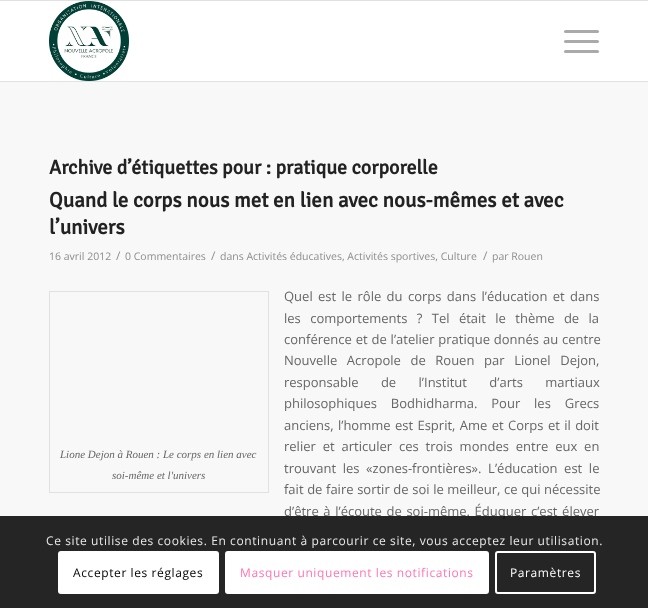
<!DOCTYPE html>
<meta charset="utf-8">
<style>body { margin: 0 } canvas { display: block }</style>
<canvas id="canvas" width="648" height="608"></canvas>
<script type="module">
  const canvas = document.getElementById("canvas");
  const ctx = canvas.getContext("2d");
  ctx.miterLimit = 4;
  ctx.fontKerning = "normal";
  async function loadImage(src) {
    const img = new Image();
    img.src = src;
    await img.decode();
    return img;
  }

  ctx.fillStyle = "#f8f8f8";
  ctx.fillRect(0, 0, 648, 608);
  ctx.fillStyle = "#e1e1e1";
  ctx.fillRect(0, 0, 648, 1);
  ctx.fillRect(0, 81, 648, 1);
  ctx.fillStyle = "#ffffff";
  ctx.fillRect(0, 1, 648, 80);
  ctx.drawImage(await loadImage("img1.png"), 49, 1, 80, 80);
  ctx.fillStyle = "#aaaaaa";
  ctx.beginPath();
  ctx.roundRect(564, 40, 35, 3, 1.5);
  ctx.fill();
  ctx.beginPath();
  ctx.roundRect(564, 30, 35, 3, 1.5);
  ctx.fill();
  ctx.beginPath();
  ctx.roundRect(564, 50, 35, 3, 1.5);
  ctx.fill();
  ctx.font = "bold 20px Signika Negative";
  ctx.fillStyle = "#222222";
  ctx.fillText("Archive d’étiquettes pour : pratique corporelle", 49, 174);
  ctx.font = "bold 21px Signika Negative";
  ctx.fillText("Quand le corps nous met en lien avec nous-mêmes et avec", 49, 207);
  ctx.fillText("l’univers", 49, 234);
  ctx.font = "10.5px Open Sans";
  ctx.fillStyle = "#8d8d8d";
  ctx.fillText("16 avril 2012", 49, 260);
  ctx.font = "12px Open Sans";
  ctx.fillText("/", 116, 260);
  ctx.font = "10.5px Open Sans";
  ctx.fillText("0 Commentaires", 125, 260);
  ctx.font = "12px Open Sans";
  ctx.fillText("/", 211, 260);
  ctx.font = "10.5px Open Sans";
  ctx.fillText("dans Activités éducatives, Activités sportives, Culture", 220, 260);
  ctx.font = "12px Open Sans";
  ctx.fillText("/", 483, 260);
  ctx.font = "10.5px Open Sans";
  ctx.fillText("par Rouen", 492, 260);
  ctx.strokeStyle = "#e1e1e1";
  ctx.strokeRect(49.5, 291.5, 219, 201);
  ctx.font = "italic 11px Liberation Serif";
  ctx.fillStyle = "#666666";
  ctx.fillText("Lione Dejon à Rouen : Le corps en lien avec", 60, 458);
  ctx.fillText("soi-même et l'univers", 112, 479);
  ctx.wordSpacing = "2px";
  ctx.font = "13px Open Sans";
  ctx.fillText("Quel est le rôle du corps dans l’éducation et dans", 284, 301);
  ctx.wordSpacing = "6px";
  ctx.fillText("les comportements ? Tel était le thème de la", 284, 323);
  ctx.wordSpacing = "0.5px";
  ctx.fillText("conférence et de l’atelier pratique donnés au centre", 284, 344);
  ctx.wordSpacing = "6.25px";
  ctx.fillText("Nouvelle Acropole de Rouen par Lionel Dejon,", 284, 365);
  ctx.wordSpacing = "19px";
  ctx.fillText("responsable de l’Institut d’arts martiaux", 284, 387);
  ctx.wordSpacing = "10.5px";
  ctx.fillText("philosophiques Bodhidharma. Pour les Grecs", 284, 408);
  ctx.wordSpacing = "1px";
  ctx.fillText("anciens, l’homme est Esprit, Ame et Corps et il doit", 284, 430);
  ctx.wordSpacing = "3.5px";
  ctx.fillText("relier et articuler ces trois mondes entre eux en", 284, 451);
  ctx.wordSpacing = "3.25px";
  ctx.fillText("trouvant les «zones-frontières». L’éducation est le", 284, 473);
  ctx.wordSpacing = "0.25px";
  ctx.fillText("fait de faire sortir de soi le meilleur, ce qui nécessite", 284, 494);
  ctx.wordSpacing = "1.25px";
  ctx.fillText("d’être à l’écoute de soi-même. Éduquer c’est élever", 284, 516);
  ctx.fillStyle = "rgba(0, 0, 0, 0.85)";
  ctx.fillRect(0, 516, 648, 92);
  ctx.letterSpacing = "0.6px";
  ctx.wordSpacing = "0px";
  ctx.font = "12px Open Sans";
  ctx.fillStyle = "#e9e9e9";
  ctx.fillText("Ce site utilise des cookies. En continuant à parcourir ce site, vous acceptez leur utilisation.", 46, 545);
  ctx.fillStyle = "#ffffff";
  ctx.beginPath();
  ctx.roundRect(58, 551, 161, 43, 3);
  ctx.fill();
  ctx.fillStyle = "#000000";
  ctx.fillText("Accepter les réglages", 73, 577);
  ctx.fillStyle = "#ffffff";
  ctx.beginPath();
  ctx.roundRect(226, 552, 262, 41, 2);
  ctx.fill();
  ctx.strokeStyle = "#ffffff";
  ctx.lineWidth = 2;
  ctx.stroke();
  ctx.fillStyle = "#ff75b5";
  ctx.fillText("Masquer uniquement les notifications", 240, 577);
  ctx.beginPath();
  ctx.roundRect(496, 552, 99, 41, 2);
  ctx.stroke();
  ctx.fillStyle = "#ffffff";
  ctx.fillText("Paramètres", 510, 577);
</script>
